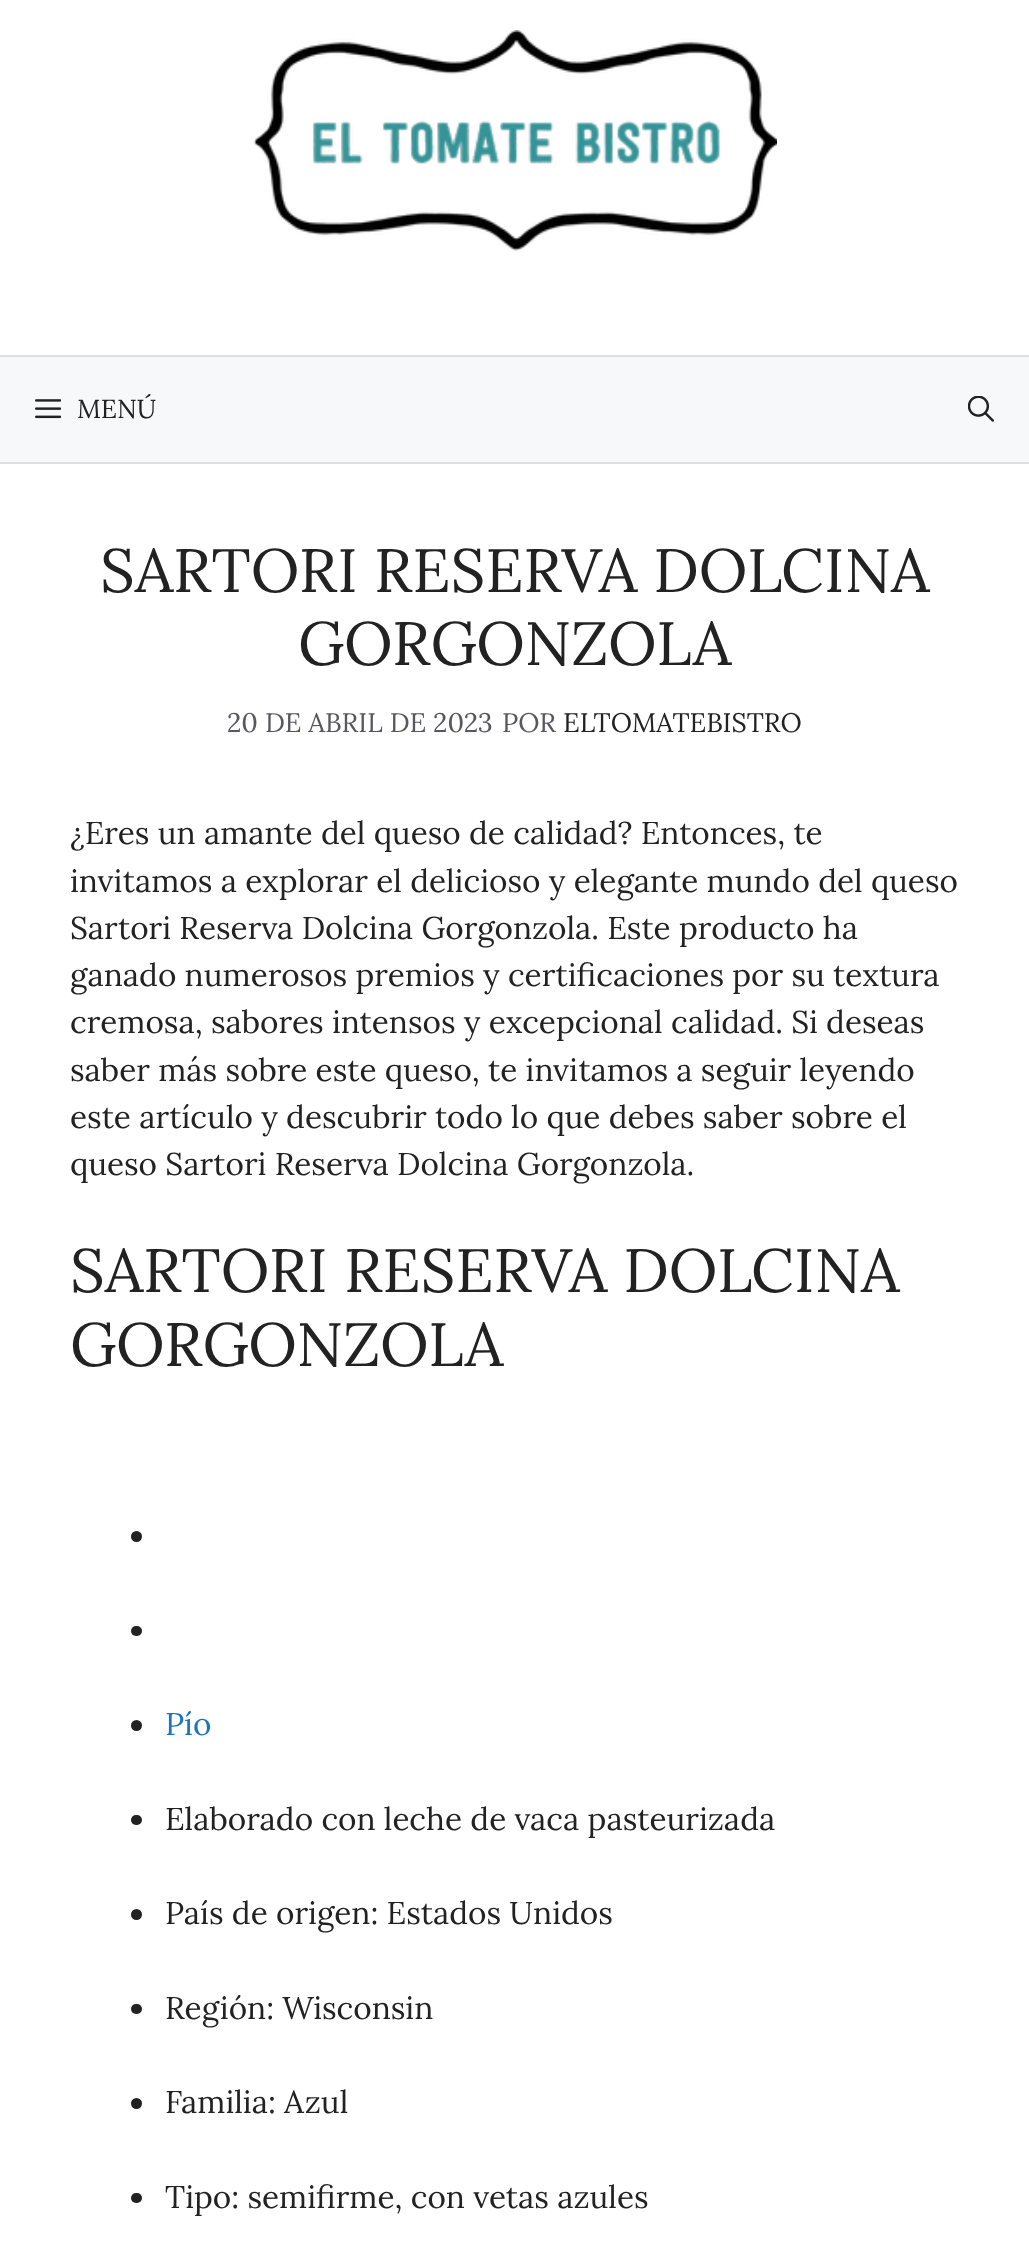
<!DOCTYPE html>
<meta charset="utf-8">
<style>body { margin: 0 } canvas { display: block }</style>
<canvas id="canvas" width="1029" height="2243"></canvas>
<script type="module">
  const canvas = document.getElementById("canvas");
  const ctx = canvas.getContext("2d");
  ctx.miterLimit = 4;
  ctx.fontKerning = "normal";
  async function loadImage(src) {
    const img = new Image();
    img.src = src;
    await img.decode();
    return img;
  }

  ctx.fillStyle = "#f7f8f9";
  ctx.fillRect(0, 0, 1029, 2243);
  ctx.fillStyle = "#ffffff";
  ctx.fillRect(0, 0, 1029, 355);
  ctx.drawImage(await loadImage("img1.png"), 253, 30, 524, 221);
  ctx.fillStyle = "#dedfe0";
  ctx.fillRect(0, 355, 1029, 2);
  ctx.fillRect(0, 462, 1029, 2);
  ctx.drawImage(await loadImage("img2.png"), 35, 399, 26, 20);
  ctx.font = "26px Lora";
  ctx.fillStyle = "#222222";
  ctx.fillText("MENÚ", 77, 418);
  ctx.drawImage(await loadImage("img3.png"), 968, 396, 26, 26);
  ctx.fillStyle = "#ffffff";
  ctx.fillRect(0, 464, 1029, 1779);
  ctx.font = "61.25px Lora";
  ctx.fillStyle = "#222222";
  ctx.fillText("SARTORI RESERVA DOLCINA", 100, 592);
  ctx.fillText("GORGONZOLA", 298, 665);
  ctx.font = "26.75px Lora";
  ctx.fillStyle = "#575760";
  ctx.fillText("20 DE ABRIL DE 2023", 227, 732);
  ctx.fillText("POR", 502, 732);
  ctx.fillStyle = "#222222";
  ctx.fillText("ELTOMATEBISTRO", 563, 732);
  ctx.font = "31.5px Lora";
  ctx.fillText("¿Eres un amante del queso de calidad? Entonces, te", 70, 844);
  ctx.fillText("invitamos a explorar el delicioso y elegante mundo del queso", 70, 892);
  ctx.fillText("Sartori Reserva Dolcina Gorgonzola. Este producto ha", 70, 939);
  ctx.fillText("ganado numerosos premios y certificaciones por su textura", 70, 986);
  ctx.fillText("cremosa, sabores intensos y excepcional calidad. Si deseas", 70, 1033);
  ctx.fillText("saber más sobre este queso, te invitamos a seguir leyendo", 70, 1081);
  ctx.fillText("este artículo y descubrir todo lo que debes saber sobre el", 70, 1128);
  ctx.fillText("queso Sartori Reserva Dolcina Gorgonzola.", 70, 1175);
  ctx.font = "61.25px Lora";
  ctx.fillText("SARTORI RESERVA DOLCINA", 70, 1292);
  ctx.fillText("GORGONZOLA", 70, 1366);
  ctx.beginPath();
  ctx.arc(136.5, 1536.5, 5.5, 0, Math.PI * 2);
  ctx.fill();
  ctx.beginPath();
  ctx.roundRect(131, 1626, 11, 10, 5);
  ctx.fill();
  ctx.beginPath();
  ctx.arc(136.5, 1725.5, 5.5, 0, Math.PI * 2);
  ctx.fill();
  ctx.font = "31.5px Lora";
  ctx.fillStyle = "#1e73be";
  ctx.fillText("Pío", 165, 1735);
  ctx.fillStyle = "#222222";
  ctx.beginPath();
  ctx.roundRect(131, 1815, 11, 10, 5);
  ctx.fill();
  ctx.fillText("Elaborado con leche de vaca pasteurizada", 165, 1830);
  ctx.beginPath();
  ctx.arc(136.5, 1914.5, 5.5, 0, Math.PI * 2);
  ctx.fill();
  ctx.fillText("País de origen: Estados Unidos", 165, 1924);
  ctx.beginPath();
  ctx.roundRect(131, 2004, 11, 10, 5);
  ctx.fill();
  ctx.fillText("Región: Wisconsin", 165, 2019);
  ctx.beginPath();
  ctx.arc(136.5, 2103.5, 5.5, 0, Math.PI * 2);
  ctx.fill();
  ctx.fillText("Familia: Azul", 165, 2113);
  ctx.beginPath();
  ctx.roundRect(131, 2193, 11, 10, 5);
  ctx.fill();
  ctx.fillText("Tipo: semifirme, con vetas azules", 165, 2208);
</script>
